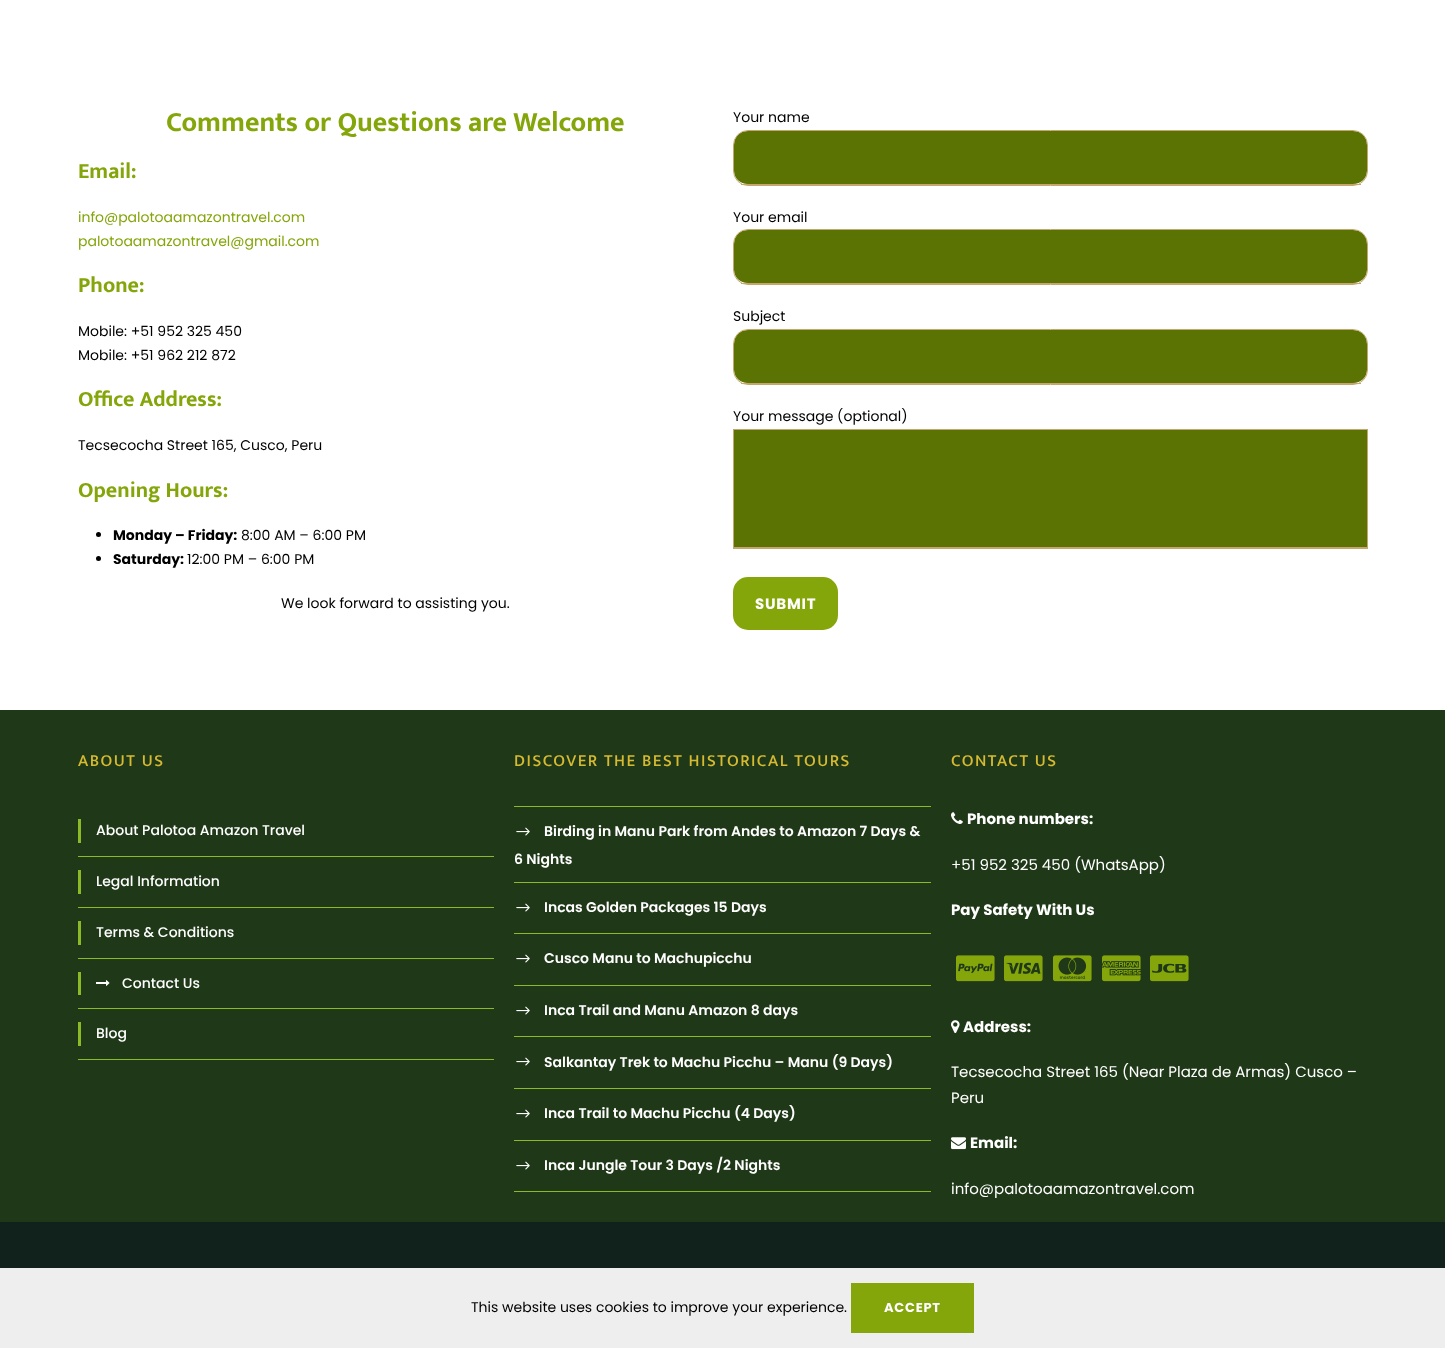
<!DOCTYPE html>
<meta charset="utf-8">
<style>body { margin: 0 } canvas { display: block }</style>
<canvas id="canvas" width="1445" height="1348"></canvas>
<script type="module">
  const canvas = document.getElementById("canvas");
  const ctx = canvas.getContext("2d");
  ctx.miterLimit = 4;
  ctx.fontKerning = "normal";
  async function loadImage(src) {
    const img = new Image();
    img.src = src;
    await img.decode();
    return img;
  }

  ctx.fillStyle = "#ffffff";
  ctx.fillRect(0, 0, 1445, 1348);
  ctx.font = "bold 28px Mukta";
  ctx.fillStyle = "#84a60a";
  ctx.fillText("Comments or Questions are Welcome", 166, 131);
  ctx.font = "bold 22px Mukta";
  ctx.fillText("Email:", 78, 178);
  ctx.font = "14px Poppins";
  ctx.fillText("info@palotoaamazontravel.com", 78, 222);
  ctx.fillText("palotoaamazontravel@gmail.com", 78, 246);
  ctx.font = "bold 22px Mukta";
  ctx.fillText("Phone:", 78, 292);
  ctx.font = "14px Poppins";
  ctx.fillStyle = "#000000";
  ctx.fillText("Mobile: +51 952 325 450", 78, 336);
  ctx.fillText("Mobile: +51 962 212 872", 78, 360);
  ctx.font = "bold 22px Mukta";
  ctx.fillStyle = "#84a60a";
  ctx.fillText("Office Address:", 78, 406);
  ctx.font = "14px Poppins";
  ctx.fillStyle = "#000000";
  ctx.fillText("Tecsecocha Street 165, Cusco, Peru", 78, 450);
  ctx.font = "bold 22px Mukta";
  ctx.fillStyle = "#84a60a";
  ctx.fillText("Opening Hours:", 78, 497);
  ctx.fillStyle = "#000000";
  ctx.beginPath();
  ctx.arc(98.5, 534.5, 2.5, 0, Math.PI * 2);
  ctx.fill();
  ctx.font = "bold 14px Poppins";
  ctx.fillText("Monday – Friday:", 113, 540);
  ctx.font = "14px Poppins";
  ctx.fillText("8:00 AM – 6:00 PM", 241, 540);
  ctx.beginPath();
  ctx.arc(98.5, 558.5, 2.5, 0, Math.PI * 2);
  ctx.fill();
  ctx.font = "bold 14px Poppins";
  ctx.fillText("Saturday:", 113, 564);
  ctx.font = "14px Poppins";
  ctx.fillText("12:00 PM – 6:00 PM", 187, 564);
  ctx.fillText("We look forward to assisting you.", 281, 608);
  ctx.fillText("Your name", 733, 122);
  ctx.fillStyle = "#5a7302";
  ctx.beginPath();
  ctx.moveTo(748, 131);
  ctx.lineTo(1353, 131);
  ctx.bezierCurveTo(1361, 131, 1367, 137, 1367, 145);
  ctx.lineTo(1367, 171);
  ctx.bezierCurveTo(1367, 178, 1361, 184, 1353, 184);
  ctx.lineTo(748, 184);
  ctx.bezierCurveTo(740, 184, 734, 178, 734, 171);
  ctx.lineTo(734, 145);
  ctx.bezierCurveTo(734, 137, 740, 131, 748, 131);
  ctx.closePath();
  ctx.fill();
  ctx.beginPath();
  ctx.roundRect(733.5, 130.5, 634, 55, 14.5);
  ctx.strokeStyle = "#c6a66f";
  ctx.stroke();
  ctx.fillStyle = "#c6a66f";
  ctx.fillRect(741, 184, 620, 1);
  ctx.fillStyle = "#000000";
  ctx.fillText("Your email", 733, 222);
  ctx.fillStyle = "#5a7302";
  ctx.beginPath();
  ctx.moveTo(748, 230);
  ctx.lineTo(1353, 230);
  ctx.bezierCurveTo(1361, 230, 1367, 236, 1367, 244);
  ctx.lineTo(1367, 270);
  ctx.bezierCurveTo(1367, 277, 1361, 283, 1353, 283);
  ctx.lineTo(748, 283);
  ctx.bezierCurveTo(740, 283, 734, 277, 734, 270);
  ctx.lineTo(734, 244);
  ctx.bezierCurveTo(734, 236, 740, 230, 748, 230);
  ctx.closePath();
  ctx.fill();
  ctx.beginPath();
  ctx.roundRect(733.5, 229.5, 634, 55, 14.5);
  ctx.stroke();
  ctx.fillStyle = "#c6a66f";
  ctx.fillRect(741, 283, 620, 1);
  ctx.fillStyle = "#000000";
  ctx.fillText("Subject", 733, 321);
  ctx.fillStyle = "#5a7302";
  ctx.beginPath();
  ctx.moveTo(748, 330);
  ctx.lineTo(1353, 330);
  ctx.bezierCurveTo(1361, 330, 1367, 336, 1367, 344);
  ctx.lineTo(1367, 370);
  ctx.bezierCurveTo(1367, 377, 1361, 383, 1353, 383);
  ctx.lineTo(748, 383);
  ctx.bezierCurveTo(740, 383, 734, 377, 734, 370);
  ctx.lineTo(734, 344);
  ctx.bezierCurveTo(734, 336, 740, 330, 748, 330);
  ctx.closePath();
  ctx.fill();
  ctx.beginPath();
  ctx.roundRect(733.5, 329.5, 634, 55, 14.5);
  ctx.stroke();
  ctx.fillStyle = "#c6a66f";
  ctx.fillRect(741, 383, 620, 1);
  ctx.fillStyle = "#000000";
  ctx.fillText("Your message (optional)", 733, 421);
  ctx.fillStyle = "#5a7302";
  ctx.fillRect(734, 430, 633, 117);
  ctx.fillStyle = "#c6a66f";
  ctx.fillRect(733, 429, 635, 1);
  ctx.fillRect(1367, 429, 1, 120);
  ctx.fillRect(733, 547, 635, 2);
  ctx.fillRect(733, 429, 1, 120);
  ctx.fillStyle = "#84a60a";
  ctx.beginPath();
  ctx.roundRect(733, 577, 105, 53, 15);
  ctx.fill();
  ctx.letterSpacing = "0.75px";
  ctx.font = "bold 15px Poppins";
  ctx.fillStyle = "#ffffff";
  ctx.fillText("SUBMIT", 755, 609);
  ctx.fillStyle = "#1f3818";
  ctx.fillRect(0, 710, 1445, 512);
  ctx.letterSpacing = "1.5px";
  ctx.font = "500 17px Mukta";
  ctx.fillStyle = "#d6ba31";
  ctx.fillText("ABOUT US", 78, 766);
  ctx.fillStyle = "#8aba25";
  ctx.fillRect(78, 856, 416, 1);
  ctx.fillRect(78, 819, 3, 24);
  ctx.letterSpacing = "0px";
  ctx.font = "500 14px Poppins";
  ctx.fillStyle = "#ffffff";
  ctx.fillText("About Palotoa Amazon Travel", 96, 835);
  ctx.fillStyle = "#8aba25";
  ctx.fillRect(78, 907, 416, 1);
  ctx.fillRect(78, 870, 3, 24);
  ctx.fillStyle = "#ffffff";
  ctx.fillText("Legal Information", 96, 886);
  ctx.fillStyle = "#8aba25";
  ctx.fillRect(78, 958, 416, 1);
  ctx.fillRect(78, 921, 3, 24);
  ctx.fillStyle = "#ffffff";
  ctx.fillText("Terms & Conditions", 96, 937);
  ctx.fillStyle = "#8aba25";
  ctx.fillRect(78, 1008, 416, 1);
  ctx.fillRect(78, 972, 3, 23);
  ctx.drawImage(await loadImage("img1.png"), 96, 980, 14, 6);
  ctx.fillStyle = "#ffffff";
  ctx.fillText("Contact Us", 122, 988);
  ctx.fillStyle = "#8aba25";
  ctx.fillRect(78, 1059, 416, 1);
  ctx.fillRect(78, 1022, 3, 24);
  ctx.fillStyle = "#ffffff";
  ctx.fillText("Blog", 96, 1038);
  ctx.letterSpacing = "1.5px";
  ctx.font = "500 17px Mukta";
  ctx.fillStyle = "#d6ba31";
  ctx.fillText("DISCOVER THE BEST HISTORICAL TOURS", 514, 766);
  ctx.fillStyle = "#8aba25";
  ctx.fillRect(514, 806, 417, 1);
  ctx.fillRect(514, 882, 417, 1);
  ctx.drawImage(await loadImage("img2.png"), 516, 827, 14, 9);
  ctx.letterSpacing = "0px";
  ctx.font = "600 14px Poppins";
  ctx.fillStyle = "#ffffff";
  ctx.fillText("Birding in Manu Park from Andes to Amazon 7 Days &", 544, 836);
  ctx.fillText("6 Nights", 514, 864);
  ctx.fillStyle = "#8aba25";
  ctx.fillRect(514, 933, 417, 1);
  ctx.drawImage(await loadImage("img2.png"), 516, 903, 14, 9);
  ctx.fillStyle = "#ffffff";
  ctx.fillText("Incas Golden Packages 15 Days", 544, 912);
  ctx.fillStyle = "#8aba25";
  ctx.fillRect(514, 985, 417, 1);
  ctx.drawImage(await loadImage("img2.png"), 516, 954, 14, 9);
  ctx.fillStyle = "#ffffff";
  ctx.fillText("Cusco Manu to Machupicchu", 544, 963);
  ctx.fillStyle = "#8aba25";
  ctx.fillRect(514, 1036, 417, 1);
  ctx.drawImage(await loadImage("img2.png"), 516, 1006, 14, 9);
  ctx.fillStyle = "#ffffff";
  ctx.fillText("Inca Trail and Manu Amazon 8 days", 544, 1015);
  ctx.fillStyle = "#8aba25";
  ctx.fillRect(514, 1088, 417, 1);
  ctx.drawImage(await loadImage("img2.png"), 516, 1057, 14, 9);
  ctx.fillStyle = "#ffffff";
  ctx.fillText("Salkantay Trek to Machu Picchu – Manu (9 Days)", 544, 1067);
  ctx.fillStyle = "#8aba25";
  ctx.fillRect(514, 1140, 417, 1);
  ctx.drawImage(await loadImage("img2.png"), 516, 1109, 14, 9);
  ctx.fillStyle = "#ffffff";
  ctx.fillText("Inca Trail to Machu Picchu (4 Days)", 544, 1118);
  ctx.fillStyle = "#8aba25";
  ctx.fillRect(514, 1191, 417, 1);
  ctx.drawImage(await loadImage("img2.png"), 516, 1161, 14, 9);
  ctx.fillStyle = "#ffffff";
  ctx.fillText("Inca Jungle Tour 3 Days /2 Nights", 544, 1170);
  ctx.letterSpacing = "1.5px";
  ctx.font = "500 17px Mukta";
  ctx.fillStyle = "#d6ba31";
  ctx.fillText("CONTACT US", 951, 766);
  ctx.drawImage(await loadImage("img3.png"), 951, 812, 12, 12);
  ctx.letterSpacing = "0px";
  ctx.font = "bold 15px Poppins";
  ctx.fillStyle = "#ffffff";
  ctx.fillText("Phone numbers:", 967, 824);
  ctx.font = "15px Poppins";
  ctx.fillText("+51 952 325 450 (WhatsApp)", 951, 870);
  ctx.font = "bold 15px Poppins";
  ctx.fillText("Pay Safety With Us", 951, 915);
  ctx.drawImage(await loadImage("img4.png"), 956, 955, 39, 27);
  ctx.drawImage(await loadImage("img5.png"), 1004, 955, 39, 27);
  ctx.drawImage(await loadImage("img6.png"), 1053, 955, 39, 27);
  ctx.drawImage(await loadImage("img7.png"), 1102, 955, 39, 27);
  ctx.drawImage(await loadImage("img8.png"), 1150, 955, 39, 27);
  ctx.drawImage(await loadImage("img9.png"), 951, 1020, 9, 13);
  ctx.fillText("Address:", 963, 1032);
  ctx.font = "15px Poppins";
  ctx.fillText("Tecsecocha Street 165 (Near Plaza de Armas) Cusco –", 951, 1077);
  ctx.fillText("Peru", 951, 1103);
  ctx.drawImage(await loadImage("img10.png"), 951, 1137, 15, 13);
  ctx.font = "bold 15px Poppins";
  ctx.fillText("Email:", 970, 1148);
  ctx.font = "15px Poppins";
  ctx.fillText("info@palotoaamazontravel.com", 951, 1194);
  ctx.fillStyle = "#11221c";
  ctx.fillRect(0, 1222, 1445, 46);
  ctx.fillStyle = "#eeeeee";
  ctx.fillRect(0, 1268, 1445, 80);
  ctx.font = "14px Poppins";
  ctx.fillStyle = "#000000";
  ctx.fillText("This website uses cookies to improve your experience.", 471, 1312);
  ctx.fillStyle = "#84a60a";
  ctx.fillRect(851, 1283, 123, 50);
  ctx.letterSpacing = "0.75px";
  ctx.font = "bold 13px Poppins";
  ctx.fillStyle = "#ffffff";
  ctx.fillText("ACCEPT", 884, 1312);
</script>
